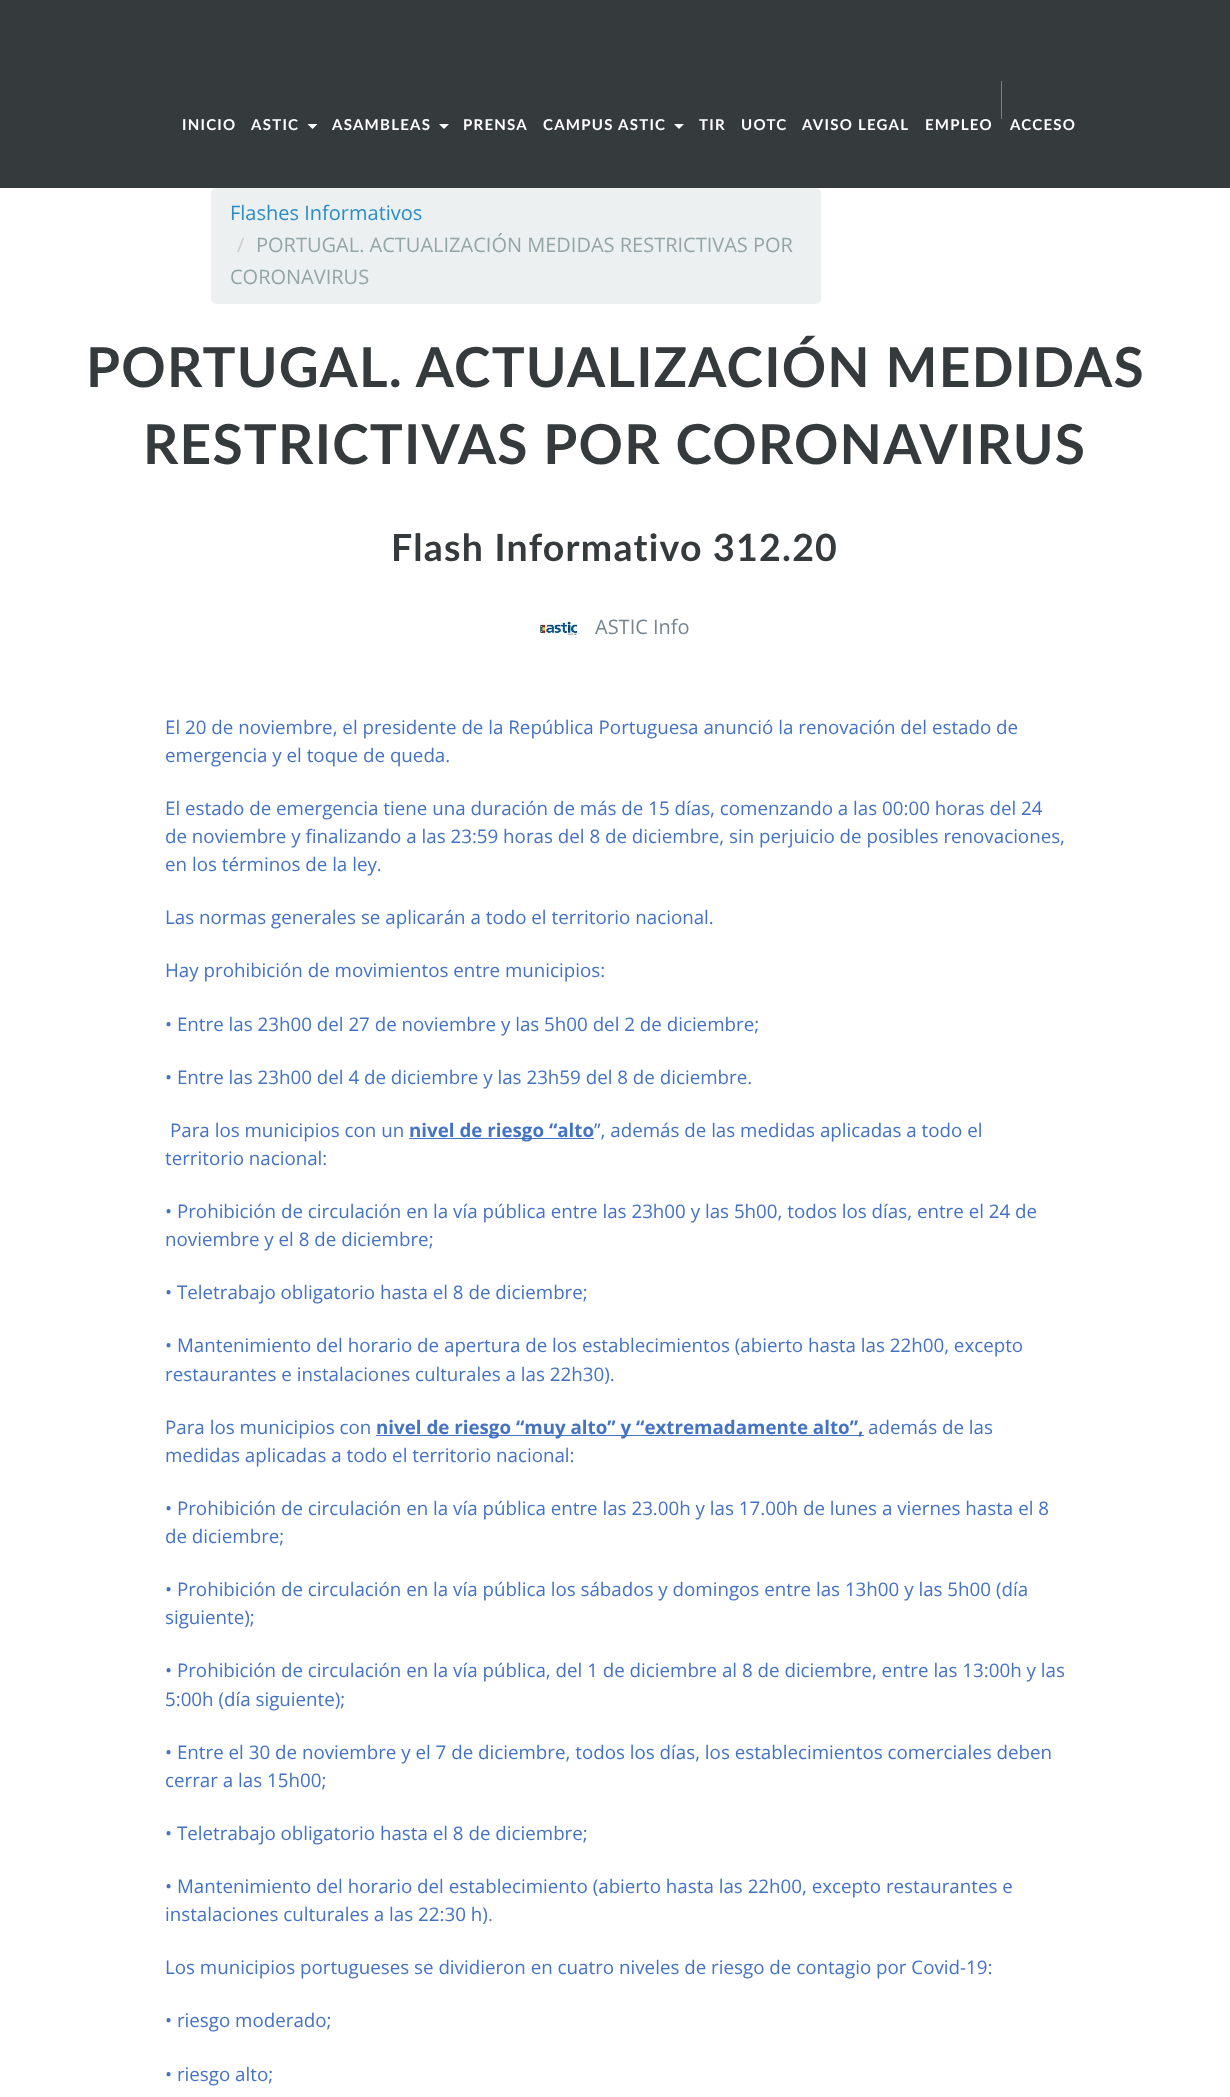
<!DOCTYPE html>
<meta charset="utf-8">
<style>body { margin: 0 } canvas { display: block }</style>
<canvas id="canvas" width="1230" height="2097"></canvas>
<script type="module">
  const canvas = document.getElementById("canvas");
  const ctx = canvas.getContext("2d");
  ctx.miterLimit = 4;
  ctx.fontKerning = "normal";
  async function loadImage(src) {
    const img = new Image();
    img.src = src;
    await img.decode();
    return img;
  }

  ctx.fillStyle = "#ffffff";
  ctx.fillRect(0, 0, 1230, 2097);
  ctx.fillStyle = "#353a3d";
  ctx.fillRect(0, 0, 1230, 188);
  ctx.fillStyle = "#808080";
  ctx.fillRect(1001, 81, 1, 38);
  ctx.letterSpacing = "1.25px";
  ctx.font = "bold 15px Lato";
  ctx.fillStyle = "#ffffff";
  ctx.fillText("INICIO", 182, 130);
  ctx.fillText("ASTIC", 251, 130);
  ctx.beginPath();
  ctx.moveTo(307.5, 124);
  ctx.lineTo(317.5, 124);
  ctx.lineTo(312.5, 129);
  ctx.closePath();
  ctx.fill();
  ctx.fillText("ASAMBLEAS", 332, 130);
  ctx.beginPath();
  ctx.moveTo(439, 124);
  ctx.lineTo(449, 124);
  ctx.lineTo(444, 129);
  ctx.closePath();
  ctx.fill();
  ctx.fillText("PRENSA", 463, 130);
  ctx.fillText("CAMPUS ASTIC", 543, 130);
  ctx.beginPath();
  ctx.moveTo(674, 124);
  ctx.lineTo(684, 124);
  ctx.lineTo(679, 129);
  ctx.closePath();
  ctx.fill();
  ctx.fillText("TIR", 699, 130);
  ctx.fillText("UOTC", 741, 130);
  ctx.fillText("AVISO LEGAL", 802, 130);
  ctx.fillText("EMPLEO", 925, 130);
  ctx.fillText("ACCESO", 1010, 130);
  ctx.fillStyle = "#ecf0f1";
  ctx.beginPath();
  ctx.roundRect(211, 188, 610, 116, 5);
  ctx.fill();
  ctx.letterSpacing = "0px";
  ctx.font = "20px Open Sans";
  ctx.fillStyle = "#2a8dc7";
  ctx.fillText("Flashes Informativos", 230, 220);
  ctx.fillStyle = "#cccccc";
  ctx.fillText("/", 237, 252);
  ctx.fillStyle = "#95a5a6";
  ctx.fillText("PORTUGAL. ACTUALIZACIÓN MEDIDAS RESTRICTIVAS POR", 256, 252);
  ctx.fillText("CORONAVIRUS", 230, 284);
  ctx.letterSpacing = "1.25px";
  ctx.font = "bold 55px Lato";
  ctx.fillStyle = "#353a3d";
  ctx.fillText("PORTUGAL. ACTUALIZACIÓN MEDIDAS", 86, 387);
  ctx.fillText("RESTRICTIVAS POR CORONAVIRUS", 143, 464);
  ctx.font = "bold 37.5px Lato";
  ctx.fillText("Flash Informativo 312.20", 391, 561);
  ctx.drawImage(await loadImage("img1.png"), 540, 619, 38, 19);
  ctx.letterSpacing = "0px";
  ctx.font = "20px Open Sans";
  ctx.fillStyle = "#788590";
  ctx.fillText("ASTIC Info", 595, 634);
  ctx.font = "18.75px Open Sans";
  ctx.fillStyle = "#4472c4";
  ctx.fillText("El 20 de noviembre, el presidente de la República Portuguesa anunció la renovación del estado de", 165, 734);
  ctx.fillText("emergencia y el toque de queda.", 165, 762);
  ctx.fillText("El estado de emergencia tiene una duración de más de 15 días, comenzando a las 00:00 horas del 24", 165, 815);
  ctx.fillText("de noviembre y finalizando a las 23:59 horas del 8 de diciembre, sin perjuicio de posibles renovaciones,", 165, 843);
  ctx.fillText("en los términos de la ley.", 165, 871);
  ctx.fillText("Las normas generales se aplicarán a todo el territorio nacional.", 165, 924);
  ctx.fillText("Hay prohibición de movimientos entre municipios:", 165, 977);
  ctx.fillText("• Entre las 23h00 del 27 de noviembre y las 5h00 del 2 de diciembre;", 165, 1031);
  ctx.fillText("• Entre las 23h00 del 4 de diciembre y las 23h59 del 8 de diciembre.", 165, 1084);
  ctx.fillText("Para los municipios con un", 170, 1137);
  ctx.fillRect(409, 1138, 185, 1);
  ctx.font = "bold 18.75px Open Sans";
  ctx.fillText("nivel de riesgo “alto", 409, 1137);
  ctx.font = "18.75px Open Sans";
  ctx.fillText("”, además de las medidas aplicadas a todo el", 594, 1137);
  ctx.fillText("territorio nacional:", 165, 1165);
  ctx.fillText("• Prohibición de circulación en la vía pública entre las 23h00 y las 5h00, todos los días, entre el 24 de", 165, 1218);
  ctx.fillText("noviembre y el 8 de diciembre;", 165, 1246);
  ctx.fillText("• Teletrabajo obligatorio hasta el 8 de diciembre;", 165, 1299);
  ctx.fillText("• Mantenimiento del horario de apertura de los establecimientos (abierto hasta las 22h00, excepto", 165, 1352);
  ctx.fillText("restaurantes e instalaciones culturales a las 22h30).", 165, 1381);
  ctx.fillText("Para los municipios con", 165, 1434);
  ctx.fillRect(376, 1435, 488, 1);
  ctx.font = "bold 18.75px Open Sans";
  ctx.fillText("nivel de riesgo “muy alto” y “extremadamente alto”,", 376, 1434);
  ctx.font = "18.75px Open Sans";
  ctx.fillText("además de las", 868, 1434);
  ctx.fillText("medidas aplicadas a todo el territorio nacional:", 165, 1462);
  ctx.fillText("• Prohibición de circulación en la vía pública entre las 23.00h y las 17.00h de lunes a viernes hasta el 8", 165, 1515);
  ctx.fillText("de diciembre;", 165, 1543);
  ctx.fillText("• Prohibición de circulación en la vía pública los sábados y domingos entre las 13h00 y las 5h00 (día", 165, 1596);
  ctx.fillText("siguiente);", 165, 1624);
  ctx.fillText("• Prohibición de circulación en la vía pública, del 1 de diciembre al 8 de diciembre, entre las 13:00h y las", 165, 1677);
  ctx.fillText("5:00h (día siguiente);", 165, 1706);
  ctx.fillText("• Entre el 30 de noviembre y el 7 de diciembre, todos los días, los establecimientos comerciales deben", 165, 1759);
  ctx.fillText("cerrar a las 15h00;", 165, 1787);
  ctx.fillText("• Teletrabajo obligatorio hasta el 8 de diciembre;", 165, 1840);
  ctx.fillText("• Mantenimiento del horario del establecimiento (abierto hasta las 22h00, excepto restaurantes e", 165, 1893);
  ctx.fillText("instalaciones culturales a las 22:30 h)", 165, 1921);
  ctx.fillStyle = "#788590";
  ctx.fillText(".", 488, 1921);
  ctx.fillStyle = "#4472c4";
  ctx.fillText("Los municipios portugueses se dividieron en cuatro niveles de riesgo de contagio por Covid-19:", 165, 1974);
  ctx.fillText("• riesgo moderado;", 165, 2027);
  ctx.fillText("• riesgo alto;", 165, 2081);
</script>
